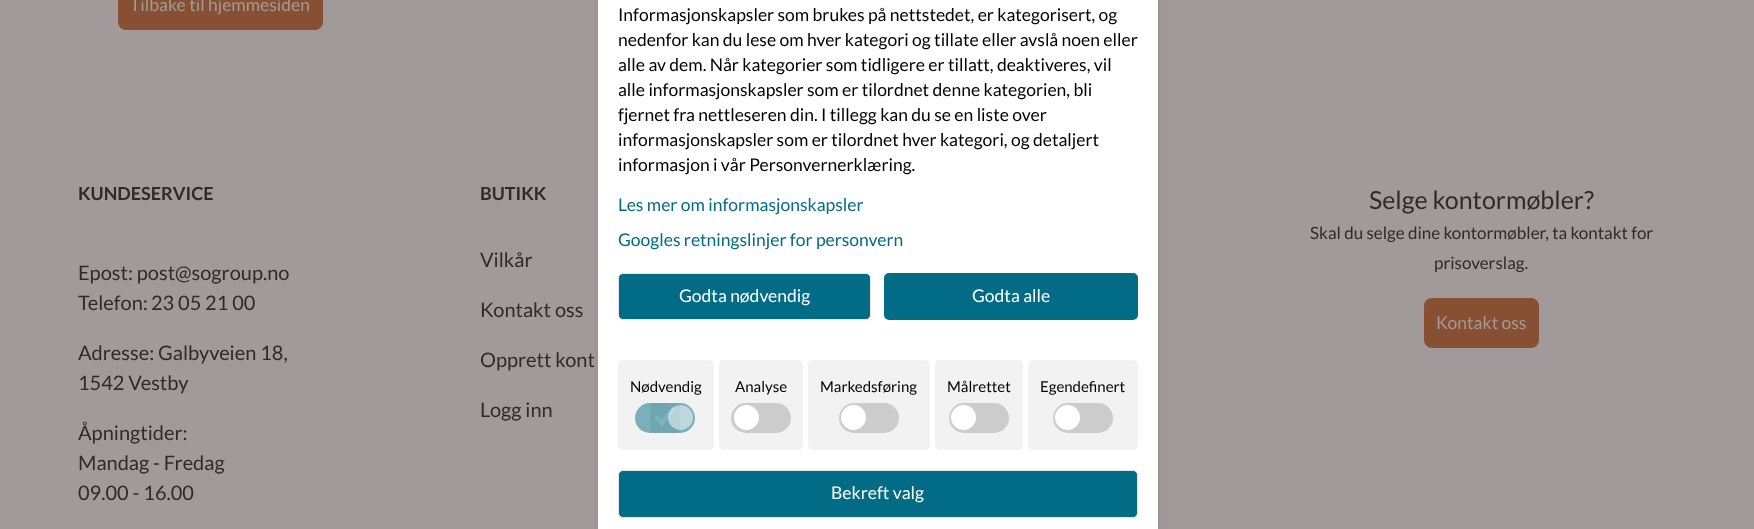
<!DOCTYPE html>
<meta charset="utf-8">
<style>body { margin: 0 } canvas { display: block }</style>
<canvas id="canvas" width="1754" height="529"></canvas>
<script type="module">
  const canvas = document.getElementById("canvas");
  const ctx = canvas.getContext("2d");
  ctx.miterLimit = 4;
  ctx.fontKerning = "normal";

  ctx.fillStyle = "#a29a9a";
  ctx.fillRect(0, 0, 1754, 529);
  ctx.fillStyle = "#885032";
  ctx.beginPath();
  ctx.roundRect(118, -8, 205, 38, 8);
  ctx.fill();
  ctx.font = "17.5px Lato";
  ctx.fillStyle = "#a29a9a";
  ctx.fillText("Tilbake til hjemmesiden", 130, 11);
  ctx.font = "bold 18px Lato";
  ctx.fillStyle = "#322929";
  ctx.fillText("KUNDESERVICE", 78, 200);
  ctx.font = "20px Lato";
  ctx.fillText("Epost: post@sogroup.no", 78, 280);
  ctx.save();
  ctx.beginPath();
  ctx.rect(78, 208, 392, 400);
  ctx.clip();
  ctx.fillText("Telefon:", 78, 310);
  ctx.restore();
  ctx.fillText("23 05 21 00", 151, 310);
  ctx.fillText("Adresse: Galbyveien 18,", 78, 360);
  ctx.fillText("1542 Vestby", 78, 390);
  ctx.fillText("Åpningtider:", 78, 440);
  ctx.fillText("Mandag - Fredag", 78, 470);
  ctx.fillText("09.00 - 16.00", 78, 500);
  ctx.font = "bold 18px Lato";
  ctx.fillText("BUTIKK", 480, 200);
  ctx.font = "20px Lato";
  ctx.fillText("Vilkår", 480, 267);
  ctx.fillText("Kontakt oss", 480, 317);
  ctx.fillText("Opprett kont", 480, 367);
  ctx.fillText("Logg inn", 480, 417);
  ctx.font = "25px Lato";
  ctx.fillText("Selge kontormøbler?", 1369, 209);
  ctx.font = "17px Lato";
  ctx.fillText("Skal du selge dine kontormøbler, ta kontakt for", 1310, 239);
  ctx.fillText("prisoverslag.", 1434, 269);
  ctx.fillStyle = "#885032";
  ctx.beginPath();
  ctx.roundRect(1424, 298, 115, 50, 8);
  ctx.fill();
  ctx.font = "17.5px Lato";
  ctx.fillStyle = "#a29a9a";
  ctx.fillText("Kontakt oss", 1436, 329);
  ctx.fillStyle = "rgba(0, 0, 0, 0.1)";
  ctx.filter = "blur(2px)";
  ctx.beginPath();
  ctx.roundRect(598, -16, 560, 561, 10);
  ctx.fill();
  ctx.filter = "none";
  ctx.fillStyle = "#ffffff";
  ctx.fillRect(598, 0, 560, 529);
  ctx.fillStyle = "#000000";
  ctx.fillText("Informasjonskapsler som brukes på nettstedet, er kategorisert, og", 618, 21);
  ctx.fillText("nedenfor kan du lese om hver kategori og tillate eller avslå noen eller", 618, 46);
  ctx.fillText("alle av dem. Når kategorier som tidligere er tillatt, deaktiveres, vil", 618, 71);
  ctx.fillText("alle informasjonskapsler som er tilordnet denne kategorien, bli", 618, 96);
  ctx.fillText("fjernet fra nettleseren din. I tillegg kan du se en liste over", 618, 121);
  ctx.fillText("informasjonskapsler som er tilordnet hver kategori, og detaljert", 618, 146);
  ctx.fillText("informasjon i vår Personvernerklæring.", 618, 171);
  ctx.fillStyle = "#026b85";
  ctx.fillText("Les mer om informasjonskapsler", 618, 211);
  ctx.fillText("Googles retningslinjer for personvern", 618, 246);
  ctx.beginPath();
  ctx.roundRect(618.5, 273.5, 252, 46, 4.5);
  ctx.fill();
  ctx.strokeStyle = "#e5e7eb";
  ctx.stroke();
  ctx.fillStyle = "#ffffff";
  ctx.fillText("Godta nødvendig", 679, 302);
  ctx.fillStyle = "#026b85";
  ctx.beginPath();
  ctx.roundRect(884, 273, 254, 47, 5);
  ctx.fill();
  ctx.fillStyle = "#ffffff";
  ctx.fillText("Godta alle", 972, 302);
  ctx.fillStyle = "#f2f2f2";
  ctx.beginPath();
  ctx.roundRect(618, 360, 96, 90, 5);
  ctx.fill();
  ctx.font = "15px Lato";
  ctx.fillStyle = "#000000";
  ctx.fillText("Nødvendig", 630, 392);
  ctx.fillStyle = "#dfdfdf";
  ctx.beginPath();
  ctx.roundRect(650, 403, 30, 30, 2.5);
  ctx.fill();
  ctx.beginPath();
  ctx.moveTo(656, 417);
  ctx.lineTo(662, 423);
  ctx.lineTo(674, 408);
  ctx.strokeStyle = "#f9f9f9";
  ctx.lineWidth = 4.8;
  ctx.stroke();
  ctx.fillStyle = "rgba(2, 107, 133, 0.5)";
  ctx.beginPath();
  ctx.roundRect(635, 403, 60, 30, 15);
  ctx.fill();
  ctx.fillStyle = "rgba(255, 255, 255, 0.5)";
  ctx.beginPath();
  ctx.arc(680.5, 417.5, 12.5, 0, Math.PI * 2);
  ctx.fill();
  ctx.fillStyle = "#f2f2f2";
  ctx.beginPath();
  ctx.roundRect(719, 360, 84, 90, 5);
  ctx.fill();
  ctx.fillStyle = "#000000";
  ctx.fillText("Analyse", 735, 392);
  ctx.fillStyle = "#cccccc";
  ctx.beginPath();
  ctx.roundRect(731, 403, 60, 30, 15);
  ctx.fill();
  ctx.fillStyle = "#ffffff";
  ctx.beginPath();
  ctx.arc(746.5, 417.5, 12.5, 0, Math.PI * 2);
  ctx.fill();
  ctx.fillStyle = "#f2f2f2";
  ctx.beginPath();
  ctx.roundRect(808, 360, 122, 90, 5);
  ctx.fill();
  ctx.fillStyle = "#000000";
  ctx.fillText("Markedsføring", 820, 392);
  ctx.fillStyle = "#cccccc";
  ctx.beginPath();
  ctx.roundRect(839, 403, 60, 30, 15);
  ctx.fill();
  ctx.fillStyle = "#ffffff";
  ctx.beginPath();
  ctx.arc(853.5, 417.5, 12.5, 0, Math.PI * 2);
  ctx.fill();
  ctx.fillStyle = "#f2f2f2";
  ctx.beginPath();
  ctx.roundRect(935, 360, 88, 90, 5);
  ctx.fill();
  ctx.fillStyle = "#000000";
  ctx.fillText("Målrettet", 947, 392);
  ctx.fillStyle = "#cccccc";
  ctx.beginPath();
  ctx.roundRect(949, 403, 60, 30, 15);
  ctx.fill();
  ctx.fillStyle = "#ffffff";
  ctx.beginPath();
  ctx.arc(963.5, 417.5, 12.5, 0, Math.PI * 2);
  ctx.fill();
  ctx.fillStyle = "#f2f2f2";
  ctx.beginPath();
  ctx.roundRect(1028, 360, 110, 90, 5);
  ctx.fill();
  ctx.fillStyle = "#000000";
  ctx.fillText("Egendefinert", 1040, 392);
  ctx.fillStyle = "#cccccc";
  ctx.beginPath();
  ctx.roundRect(1053, 403, 60, 30, 15);
  ctx.fill();
  ctx.fillStyle = "#ffffff";
  ctx.beginPath();
  ctx.arc(1067.5, 417.5, 12.5, 0, Math.PI * 2);
  ctx.fill();
  ctx.fillStyle = "#026b85";
  ctx.beginPath();
  ctx.roundRect(618.5, 470.5, 519, 47, 4.5);
  ctx.fill();
  ctx.strokeStyle = "#e5e7eb";
  ctx.lineWidth = 1;
  ctx.stroke();
  ctx.font = "17.5px Lato";
  ctx.fillStyle = "#ffffff";
  ctx.fillText("Bekreft valg", 831, 499);
</script>
